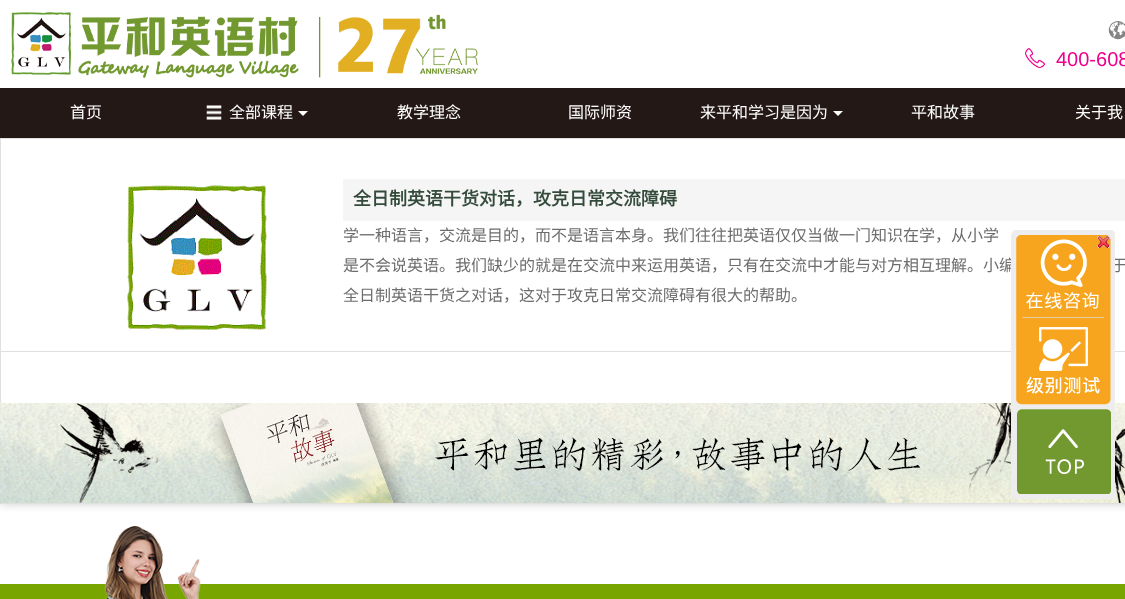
<!DOCTYPE html>
<meta charset="utf-8">
<style>body { margin: 0 } canvas { display: block }</style>
<canvas id="canvas" width="1125" height="599"></canvas>
<script type="module">
  const canvas = document.getElementById("canvas");
  const ctx = canvas.getContext("2d");
  ctx.miterLimit = 4;
  ctx.fontKerning = "normal";
  async function loadImage(src) {
    const img = new Image();
    img.src = src;
    await img.decode();
    return img;
  }

  ctx.fillStyle = "#ffffff";
  ctx.fillRect(0, 0, 1125, 599);
  ctx.drawImage(await loadImage("img1.png"), 11, 12, 467, 66);
  ctx.drawImage(await loadImage("img2.png"), 1108, 21, 17, 19);
  ctx.drawImage(await loadImage("img3.png"), 1025, 48, 20, 20);
  ctx.font = "20px Liberation Sans";
  ctx.fillStyle = "#ec008c";
  ctx.fillText("400-608", 1056, 66);
  ctx.save();
  ctx.beginPath();
  ctx.rect(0, 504, 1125, 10);
  ctx.clip();
  ctx.fillStyle = "#cecece";
  ctx.filter = "blur(5px)";
  ctx.beginPath();
  ctx.rect(0, 138, 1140, 366);
  ctx.fill();
  ctx.filter = "none";
  ctx.restore();
  ctx.fillStyle = "#231815";
  ctx.fillRect(0, 88, 1125, 50);
  ctx.font = "16px Noto Sans CJK SC";
  ctx.fillStyle = "#ffffff";
  ctx.fillText("首页", 70, 118);
  ctx.drawImage(await loadImage("img4.png"), 206, 105, 16, 15);
  ctx.fillText("全部课程", 229, 118);
  ctx.beginPath();
  ctx.moveTo(298, 111);
  ctx.lineTo(308, 111);
  ctx.lineTo(303, 116);
  ctx.closePath();
  ctx.fill();
  ctx.fillText("教学理念", 397, 118);
  ctx.fillText("国际师资", 568, 118);
  ctx.fillText("来平和学习是因为", 700, 118);
  ctx.beginPath();
  ctx.moveTo(833, 111);
  ctx.lineTo(843, 111);
  ctx.lineTo(838, 116);
  ctx.closePath();
  ctx.fill();
  ctx.fillText("平和故事", 911, 118);
  ctx.fillText("关于我", 1075, 118);
  ctx.strokeStyle = "#e0e0e0";
  ctx.strokeRect(0.5, 138.5, 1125, 365);
  ctx.fillStyle = "#e0e0e0";
  ctx.fillRect(1, 351, 1124, 1);
  ctx.drawImage(await loadImage("img5.png"), 127, 185, 140, 145);
  ctx.fillStyle = "#f5f5f5";
  ctx.fillRect(343, 179, 782, 42);
  ctx.font = "bold 18px Noto Sans CJK SC";
  ctx.fillStyle = "#344b3c";
  ctx.fillText("全日制英语干货对话，攻克日常交流障碍", 353, 205);
  ctx.font = "16px Noto Sans CJK SC";
  ctx.fillStyle = "#6d6d6d";
  ctx.fillText("学一种语言，交流是目的，而不是语言本身。我们往往把英语仅仅当做一门知识在学，从小学", 343, 241);
  ctx.fillText("是不会说英语。我们缺少的就是在交流中来运用英语，只有在交流中才能与对方相互理解。小编", 343, 271);
  ctx.fillText("于", 1111, 271);
  ctx.fillText("全日制英语干货之对话，这对于攻克日常交流障碍有很大的帮助。", 343, 301);
  ctx.drawImage(await loadImage("img6.png"), 0, 403, 1125, 100);
  ctx.fillStyle = "#79a500";
  ctx.fillRect(0, 584, 1125, 15);
  ctx.drawImage(await loadImage("img7.png"), 104, 525, 97, 74);
  ctx.drawImage(await loadImage("img9.png"), 1011, 230, 104, 269);
  ctx.drawImage(await loadImage("img8.png"), 1017, 409, 94, 85);
  ctx.drawImage(await loadImage("img10.png"), 1026, 239, 73, 70);
  ctx.drawImage(await loadImage("img11.png"), 1097, 236, 13, 12);
  ctx.drawImage(await loadImage("img12.png"), 1026, 327, 74, 67);
</script>
